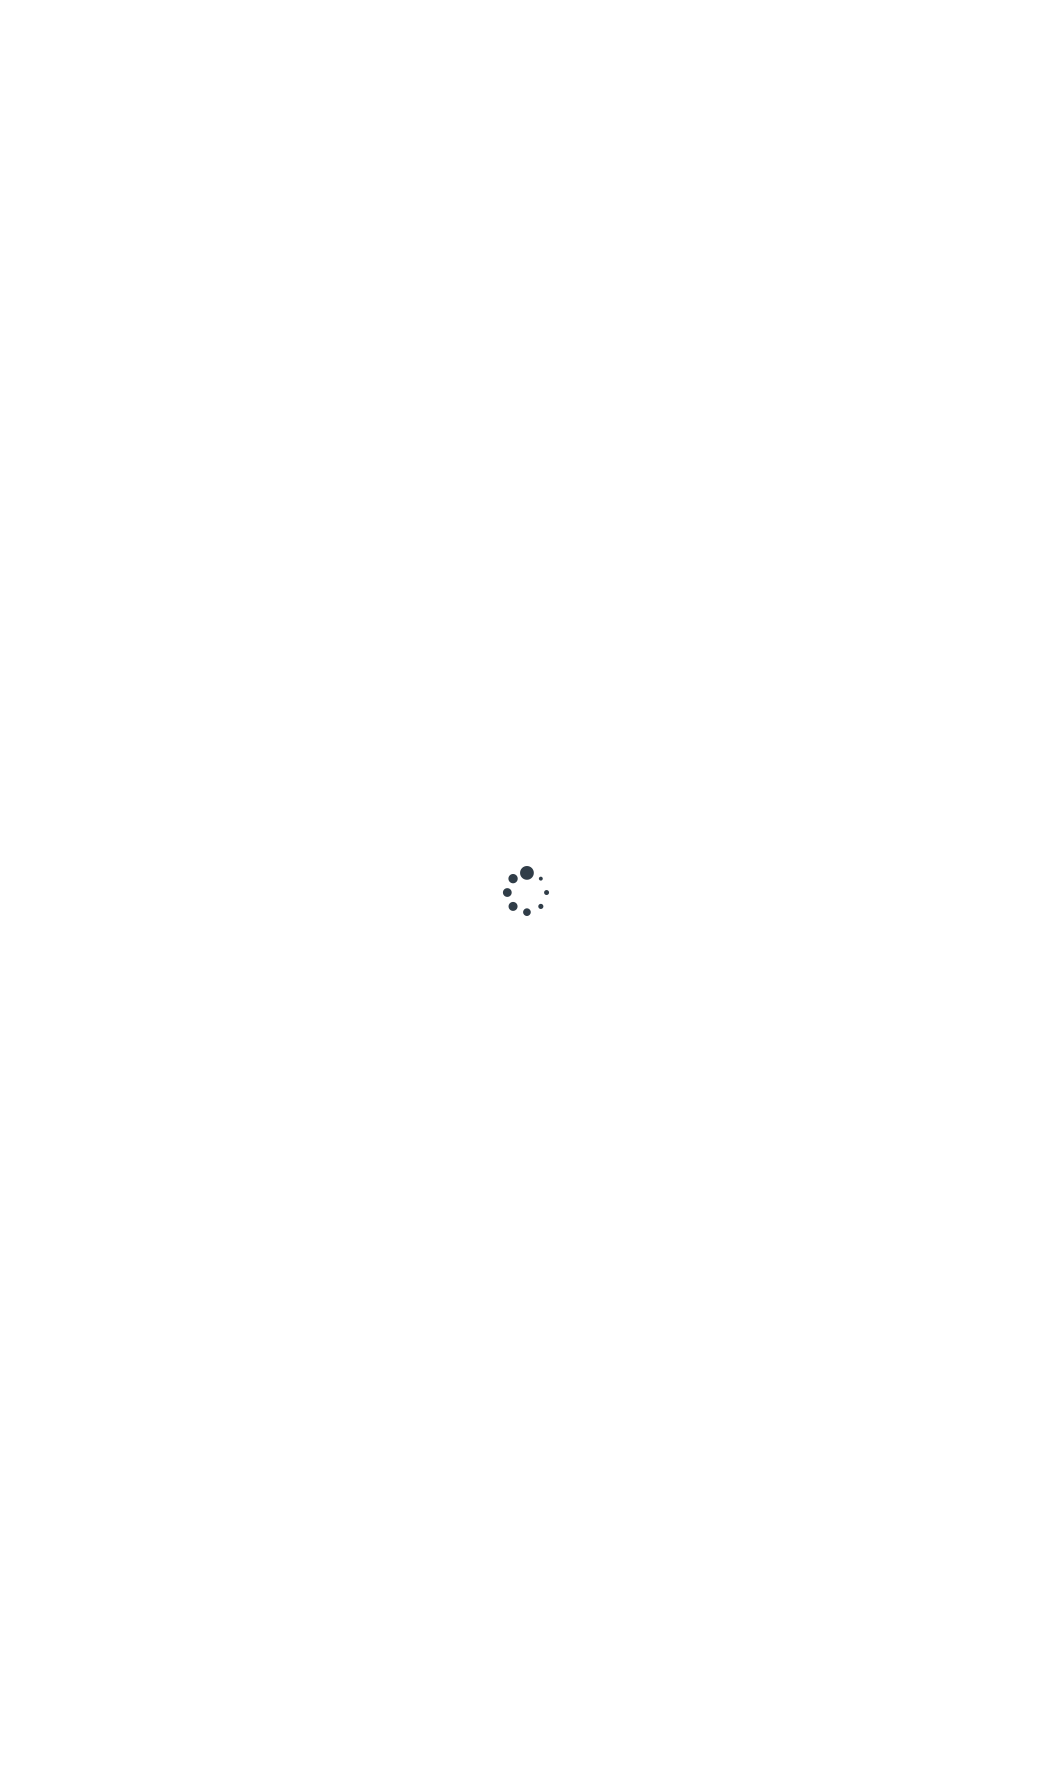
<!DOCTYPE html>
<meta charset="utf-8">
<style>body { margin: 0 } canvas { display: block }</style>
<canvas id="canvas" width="1052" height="1781"></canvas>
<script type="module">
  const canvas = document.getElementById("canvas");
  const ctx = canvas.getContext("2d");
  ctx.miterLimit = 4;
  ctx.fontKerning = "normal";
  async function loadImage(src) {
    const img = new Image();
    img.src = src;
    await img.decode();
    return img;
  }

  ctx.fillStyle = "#ffffff";
  ctx.fillRect(0, 0, 1052, 1781);
  ctx.drawImage(await loadImage("img1.png"), 502, 866, 48, 50);
</script>
